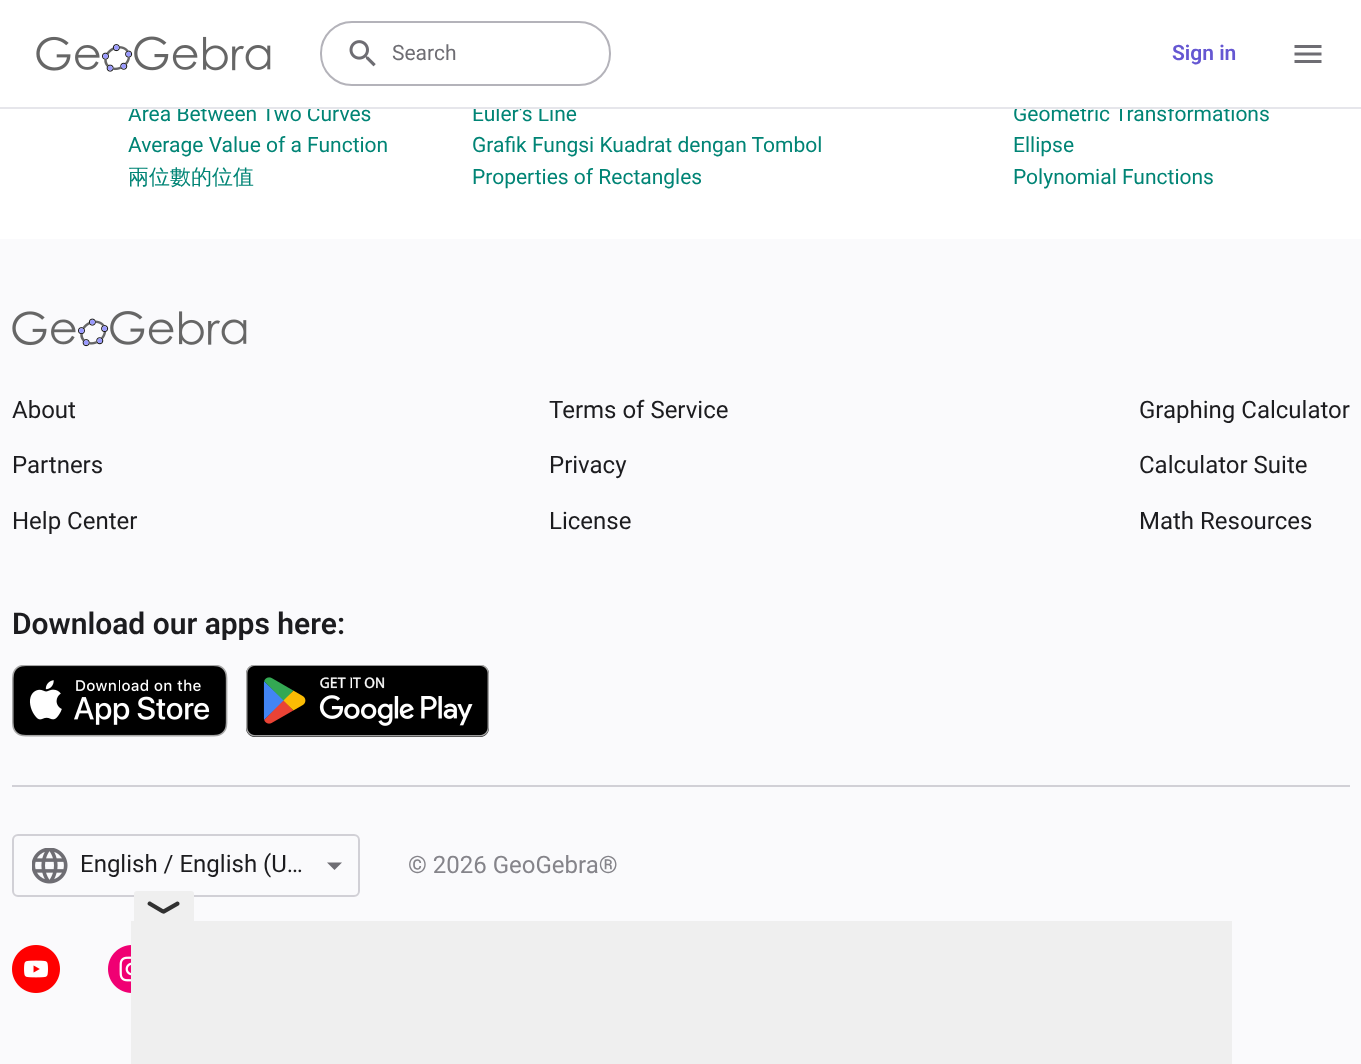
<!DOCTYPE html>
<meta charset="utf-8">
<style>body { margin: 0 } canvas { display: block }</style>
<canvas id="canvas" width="1361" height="1064"></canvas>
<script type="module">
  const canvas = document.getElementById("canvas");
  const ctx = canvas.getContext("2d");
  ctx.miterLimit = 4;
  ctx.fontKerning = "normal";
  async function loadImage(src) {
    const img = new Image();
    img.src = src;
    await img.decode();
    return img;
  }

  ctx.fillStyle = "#ffffff";
  ctx.fillRect(0, 0, 1361, 1064);
  ctx.font = "21px Roboto";
  ctx.fillStyle = "#008475";
  ctx.fillText("Area Between Two Curves", 128, 121);
  ctx.fillText("Euler's Line", 472, 121);
  ctx.fillText("Geometric Transformations", 1013, 121);
  ctx.fillStyle = "#ffffff";
  ctx.fillRect(133, 105, 1102, 2);
  ctx.fillStyle = "#e6e6eb";
  ctx.fillRect(0, 107, 1361, 2);
  ctx.drawImage(await loadImage("img1.png"), 36, 36, 235, 36);
  ctx.beginPath();
  ctx.roundRect(321, 22, 289, 63, 31);
  ctx.strokeStyle = "#b4b3ba";
  ctx.lineWidth = 2;
  ctx.stroke();
  ctx.drawImage(await loadImage("img2.png"), 349, 40, 27, 27);
  ctx.fillStyle = "#6e6d73";
  ctx.fillText("Search", 392, 60);
  ctx.font = "600 21px Roboto";
  ctx.fillStyle = "#6557d2";
  ctx.fillText("Sign in", 1172, 60);
  ctx.drawImage(await loadImage("img3.png"), 1294, 45, 28, 18);
  ctx.font = "21px Roboto";
  ctx.fillStyle = "#008475";
  ctx.fillText("Average Value of a Function", 128, 152);
  ctx.font = "500 21px WenQuanYi Zen Hei";
  ctx.fillText("兩位數的位值", 128, 184);
  ctx.font = "21px Roboto";
  ctx.fillText("Grafik Fungsi Kuadrat dengan Tombol", 472, 152);
  ctx.fillText("Properties of Rectangles", 472, 184);
  ctx.fillText("Ellipse", 1013, 152);
  ctx.fillText("Polynomial Functions", 1013, 184);
  ctx.fillStyle = "#fafafc";
  ctx.fillRect(0, 239, 1361, 825);
  ctx.drawImage(await loadImage("img4.png"), 12, 311, 235, 36);
  ctx.font = "24px Roboto";
  ctx.fillStyle = "#1c1c1f";
  ctx.fillText("About", 12, 418);
  ctx.fillText("Partners", 12, 473);
  ctx.fillText("Help Center", 12, 529);
  ctx.fillText("Terms of Service", 549, 418);
  ctx.fillText("Privacy", 549, 473);
  ctx.fillText("License", 549, 529);
  ctx.fillText("Graphing Calculator", 1139, 418);
  ctx.fillText("Calculator Suite", 1139, 473);
  ctx.fillText("Math Resources", 1139, 529);
  ctx.font = "600 30px Roboto";
  ctx.fillText("Download our apps here:", 12, 634);
  ctx.drawImage(await loadImage("img5.png"), 12, 665, 216, 72);
  ctx.drawImage(await loadImage("img6.png"), 246, 665, 243, 72);
  ctx.fillStyle = "#d1d0d6";
  ctx.fillRect(12, 785, 1338, 2);
  ctx.beginPath();
  ctx.roundRect(13, 835, 346, 61, 5);
  ctx.strokeStyle = "#d1d0d6";
  ctx.stroke();
  ctx.drawImage(await loadImage("img7.png"), 32, 848, 36, 36);
  ctx.font = "24px Roboto";
  ctx.fillStyle = "#1c1c1f";
  ctx.fillText("English / English (U…", 80, 872);
  ctx.fillStyle = "#6e6d73";
  ctx.beginPath();
  ctx.moveTo(327, 862.5);
  ctx.lineTo(334.5, 870);
  ctx.lineTo(342, 862.5);
  ctx.closePath();
  ctx.fill();
  ctx.fillStyle = "#85848a";
  ctx.fillText("© 2026 GeoGebra®", 408, 873);
  ctx.drawImage(await loadImage("img8.png"), 12, 945, 48, 48);
  ctx.drawImage(await loadImage("img9.png"), 108, 945, 23, 48);
  ctx.fillStyle = "#efefef";
  ctx.beginPath();
  ctx.roundRect(134, 891, 60, 30, [3, 3, 0, 0]);
  ctx.fill();
  ctx.fillStyle = "#313131";
  ctx.beginPath();
  ctx.moveTo(151, 902);
  ctx.lineTo(164.5, 910);
  ctx.bezierCurveTo(166, 912, 164, 914.5, 161.5, 913);
  ctx.lineTo(148, 905);
  ctx.bezierCurveTo(146.5, 903, 149, 900.5, 151, 902);
  ctx.closePath();
  ctx.fill();
  ctx.beginPath();
  ctx.moveTo(163, 909.5);
  ctx.lineTo(177, 901.5);
  ctx.bezierCurveTo(179.5, 901, 180.5, 904.5, 178.5, 905.5);
  ctx.lineTo(164.5, 913.5);
  ctx.bezierCurveTo(162, 914, 161, 910.5, 163, 909.5);
  ctx.closePath();
  ctx.fill();
  ctx.fillStyle = "#efefef";
  ctx.fillRect(131, 921, 1101, 143);
</script>
